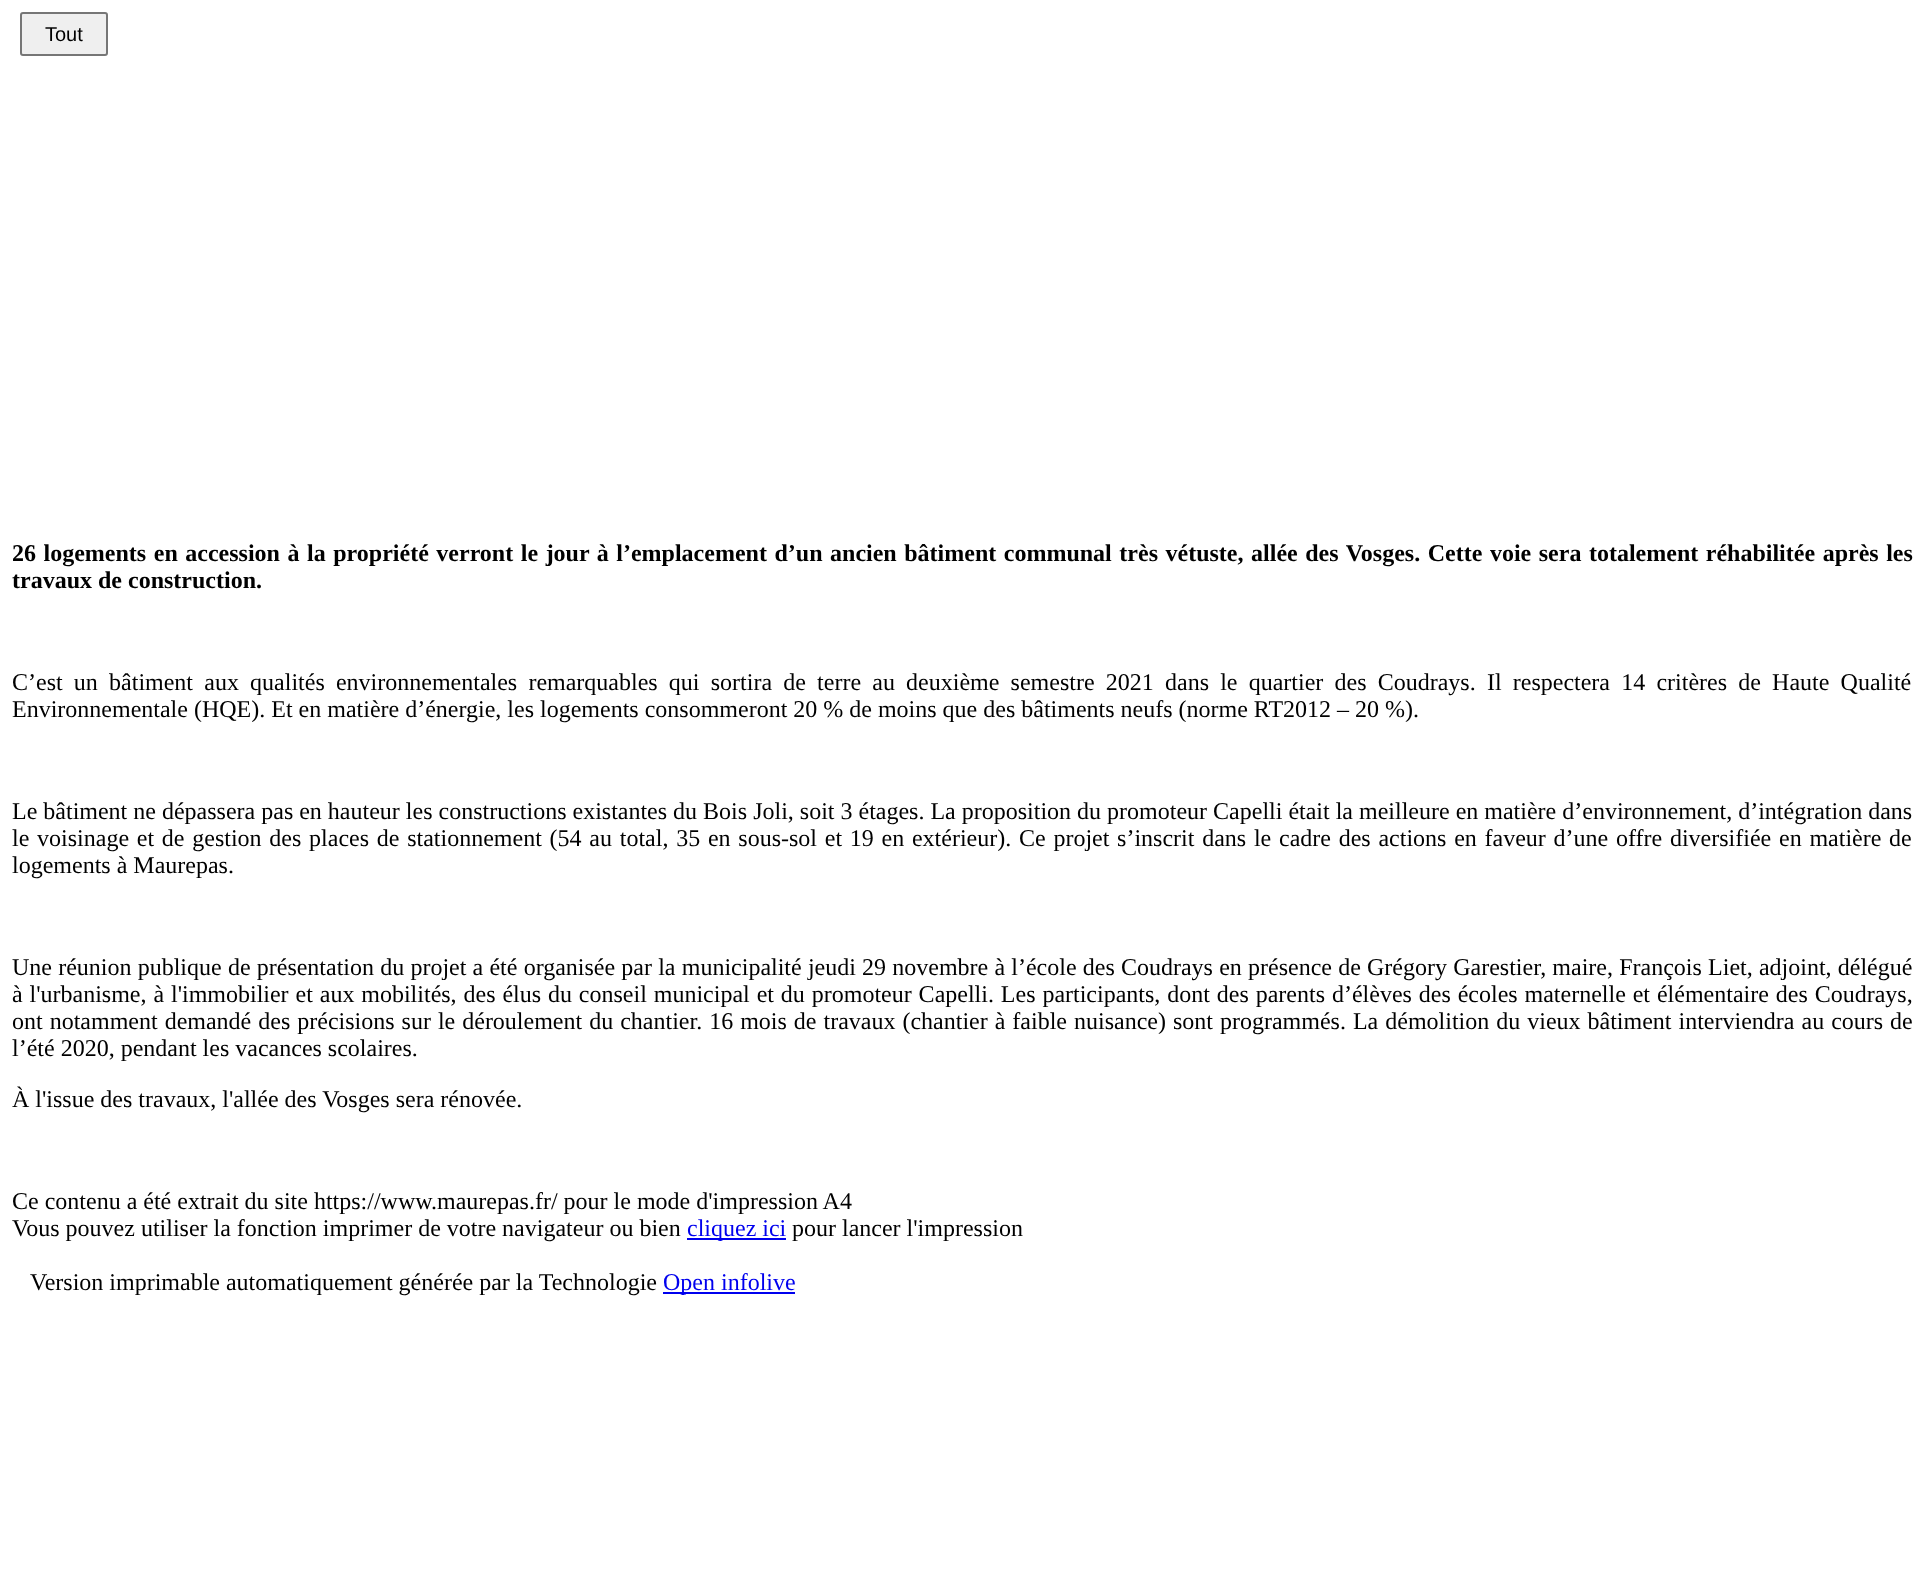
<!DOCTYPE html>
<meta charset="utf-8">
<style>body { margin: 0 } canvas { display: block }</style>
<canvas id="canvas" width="1924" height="1591"></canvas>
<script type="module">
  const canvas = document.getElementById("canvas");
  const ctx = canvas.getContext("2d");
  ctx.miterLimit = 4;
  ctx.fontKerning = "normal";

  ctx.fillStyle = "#ffffff";
  ctx.fillRect(0, 0, 1924, 1591);
  ctx.fillStyle = "#efefef";
  ctx.beginPath();
  ctx.roundRect(21, 13, 86, 42, 2);
  ctx.fill();
  ctx.strokeStyle = "#767676";
  ctx.lineWidth = 2;
  ctx.stroke();
  ctx.font = "20px Liberation Sans";
  ctx.fillStyle = "#000000";
  ctx.fillText("Tout", 45, 41);
  ctx.wordSpacing = "1.55px";
  ctx.font = "bold 24px Liberation Serif";
  ctx.fillText("26 logements en accession à la propriété verront le jour à l’emplacement d’un ancien bâtiment communal très vétuste, allée des Vosges. Cette voie sera totalement réhabilitée après les", 12, 561);
  ctx.wordSpacing = "0px";
  ctx.fillText("travaux de construction.", 12, 588);
  ctx.wordSpacing = "5.2px";
  ctx.font = "24px Liberation Serif";
  ctx.fillText("C’est un bâtiment aux qualités environnementales remarquables qui sortira de terre au deuxième semestre 2021 dans le quartier des Coudrays. Il respectera 14 critères de Haute Qualité", 12, 690);
  ctx.wordSpacing = "0px";
  ctx.fillText("Environnementale (HQE). Et en matière d’énergie, les logements consommeront 20 % de moins que des bâtiments neufs (norme RT2012 – 20 %).", 12, 717);
  ctx.fillText("Le bâtiment ne dépassera pas en hauteur les constructions existantes du Bois Joli, soit 3 étages. La proposition du promoteur Capelli était la meilleure en matière d’environnement, d’intégration dans", 12, 819);
  ctx.wordSpacing = "1.75px";
  ctx.fillText("le voisinage et de gestion des places de stationnement (54 au total, 35 en sous-sol et 19 en extérieur). Ce projet s’inscrit dans le cadre des actions en faveur d’une offre diversifiée en matière de", 12, 846);
  ctx.wordSpacing = "0px";
  ctx.fillText("logements à Maurepas.", 12, 873);
  ctx.wordSpacing = "0.2px";
  ctx.fillText("Une réunion publique de présentation du projet a été organisée par la municipalité jeudi 29 novembre à l’école des Coudrays en présence de Grégory Garestier, maire, François Liet, adjoint, délégué", 12, 975);
  ctx.wordSpacing = "0.9px";
  ctx.fillText("à l'urbanisme, à l'immobilier et aux mobilités, des élus du conseil municipal et du promoteur Capelli. Les participants, dont des parents d’élèves des écoles maternelle et élémentaire des Coudrays,", 12, 1002);
  ctx.wordSpacing = "1px";
  ctx.fillText("ont notamment demandé des précisions sur le déroulement du chantier. 16 mois de travaux (chantier à faible nuisance) sont programmés. La démolition du vieux bâtiment interviendra au cours de", 12, 1029);
  ctx.wordSpacing = "0px";
  ctx.fillText("l’été 2020, pendant les vacances scolaires.", 12, 1056);
  ctx.fillText("À l'issue des travaux, l'allée des Vosges sera rénovée.", 12, 1107);
  ctx.fillText("Ce contenu a été extrait du site https://www.maurepas.fr/ pour le mode d'impression A4", 12, 1209);
  ctx.fillText("Vous pouvez utiliser la fonction imprimer de votre navigateur ou bien", 12, 1236);
  ctx.fillStyle = "#0000ee";
  ctx.fillRect(687, 1238, 99, 2);
  ctx.fillText("cliquez ici", 687, 1236);
  ctx.fillStyle = "#000000";
  ctx.fillText("pour lancer l'impression", 792, 1236);
  ctx.fillText("Version imprimable automatiquement générée par la Technologie", 30, 1290);
  ctx.fillStyle = "#0000ee";
  ctx.fillRect(663, 1292, 132, 2);
  ctx.fillText("Open infolive", 663, 1290);
</script>
